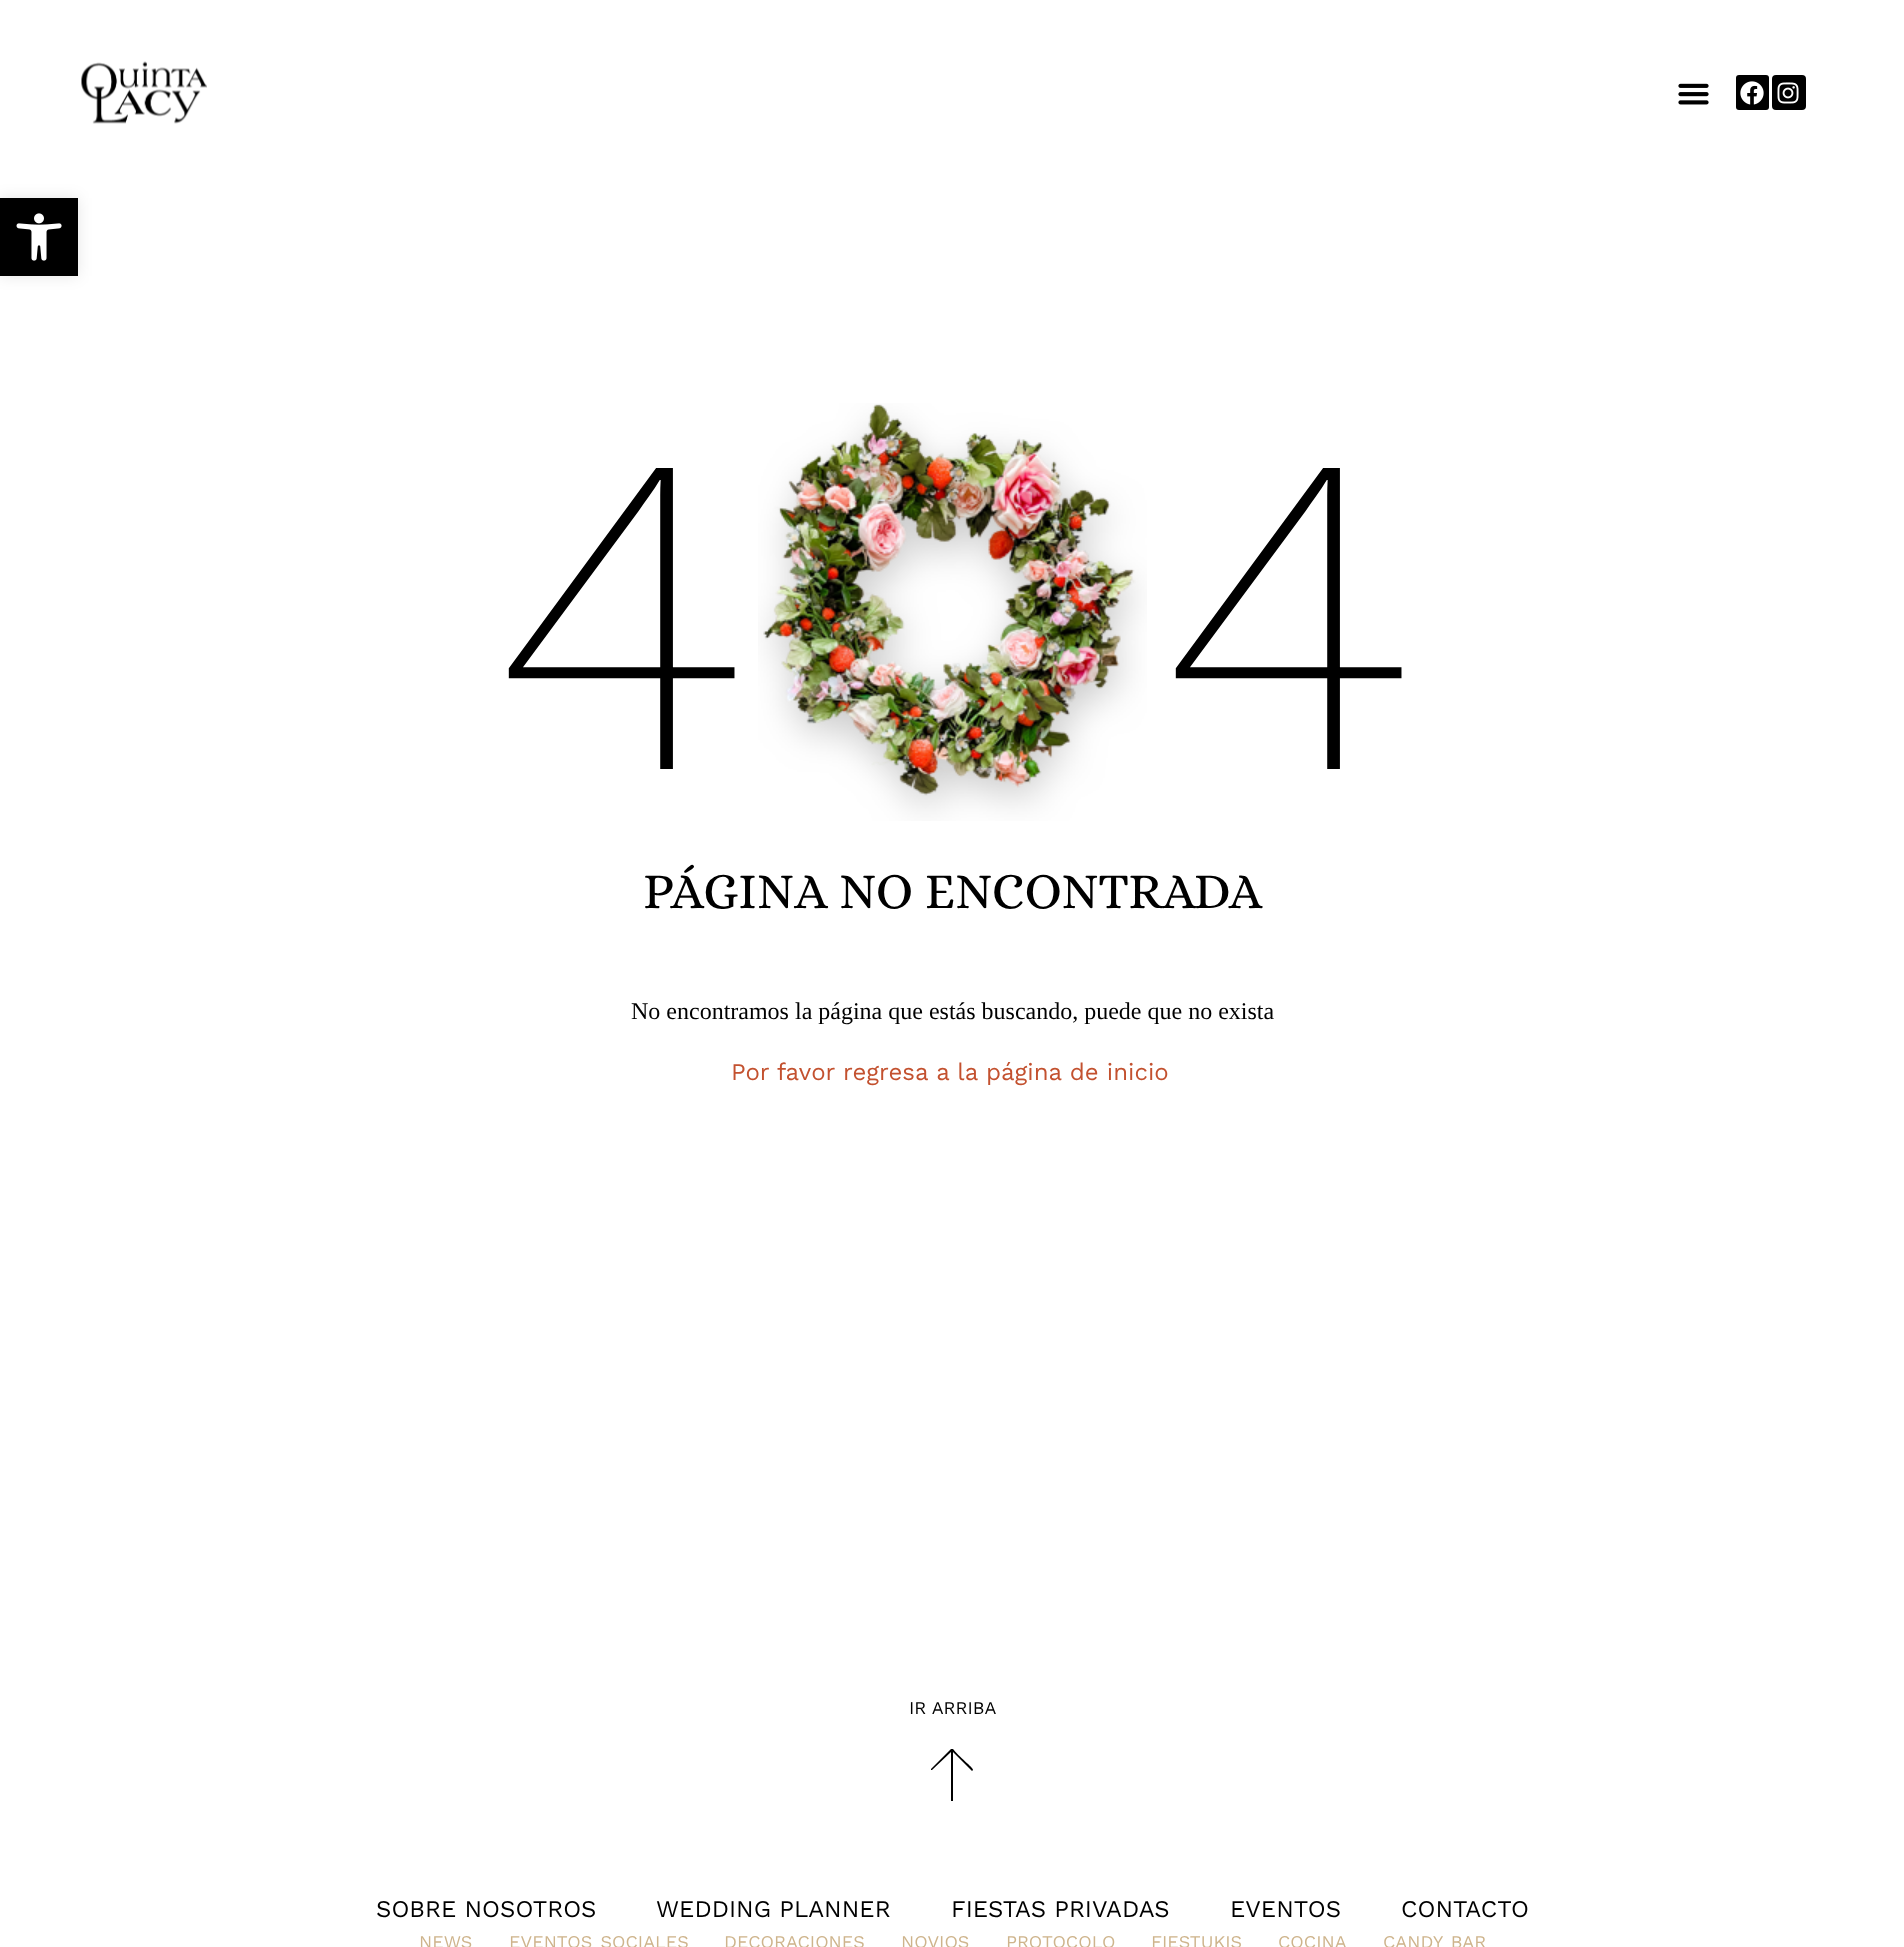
<!DOCTYPE html>
<meta charset="utf-8">
<style>body { margin: 0 } canvas { display: block }</style>
<canvas id="canvas" width="1904" height="1947"></canvas>
<script type="module">
  const canvas = document.getElementById("canvas");
  const ctx = canvas.getContext("2d");
  ctx.miterLimit = 4;
  ctx.fontKerning = "normal";
  async function loadImage(src) {
    const img = new Image();
    img.src = src;
    await img.decode();
    return img;
  }

  ctx.fillStyle = "#ffffff";
  ctx.fillRect(0, 0, 1904, 1947);
  ctx.drawImage(await loadImage("img1.png"), 81, 61, 126, 63);
  ctx.drawImage(await loadImage("img2.png"), 1678, 83, 31, 22);
  ctx.fillStyle = "#000000";
  ctx.beginPath();
  ctx.roundRect(1736, 75, 33, 35, 3);
  ctx.fill();
  ctx.drawImage(await loadImage("img3.png"), 1740, 81, 24, 24);
  ctx.beginPath();
  ctx.roundRect(1772, 75, 34, 35, 4);
  ctx.fill();
  ctx.drawImage(await loadImage("img4.png"), 1777, 82, 22, 22);
  ctx.fillStyle = "rgba(0, 0, 0, 0.1)";
  ctx.filter = "blur(7.5px)";
  ctx.beginPath();
  ctx.rect(0, 198, 78, 78);
  ctx.fill();
  ctx.filter = "none";
  ctx.fillStyle = "#000000";
  ctx.fillRect(0, 198, 78, 78);
  ctx.drawImage(await loadImage("img5.png"), 16, 213, 46, 48);
  ctx.font = "200 456px Work Sans";
  ctx.fillText("4", 491, 769);
  ctx.drawImage(await loadImage("img6.png"), 758, 403, 389, 418);
  ctx.fillText("4", 1158, 769);
  ctx.font = "51px Alice";
  ctx.fillText("PÁGINA NO ENCONTRADA", 643, 908);
  ctx.font = "24px Liberation Serif";
  ctx.fillText("No encontramos la página que estás buscando, puede que no exista", 631, 1019);
  ctx.font = "24px Work Sans";
  ctx.fillStyle = "#c3512f";
  ctx.fillText("Por favor regresa a la página de inicio", 731, 1080);
  ctx.font = "18px Work Sans";
  ctx.fillStyle = "#000000";
  ctx.fillText("IR ARRIBA", 909, 1714);
  ctx.beginPath();
  ctx.moveTo(931, 1770);
  ctx.lineTo(932, 1770);
  ctx.lineTo(951, 1752);
  ctx.lineTo(951, 1801);
  ctx.lineTo(953, 1801);
  ctx.lineTo(953, 1752);
  ctx.lineTo(972, 1771);
  ctx.lineTo(973, 1770);
  ctx.bezierCurveTo(974, 1768, 958, 1756, 953, 1749);
  ctx.lineTo(951, 1749);
  ctx.lineTo(931, 1769);
  ctx.closePath();
  ctx.fill();
  ctx.font = "24px Work Sans";
  ctx.fillText("SOBRE NOSOTROS", 376, 1917);
  ctx.fillText("WEDDING PLANNER", 656, 1917);
  ctx.fillText("FIESTAS PRIVADAS", 951, 1917);
  ctx.fillText("EVENTOS", 1230, 1917);
  ctx.fillText("CONTACTO", 1401, 1917);
  ctx.font = "18px Work Sans";
  ctx.fillStyle = "#ceb48c";
  ctx.fillText("NEWS", 419, 1948);
  ctx.wordSpacing = "2px";
  ctx.fillText("EVENTOS SOCIALES", 509, 1948);
  ctx.wordSpacing = "0px";
  ctx.fillText("DECORACIONES", 724, 1948);
  ctx.fillText("NOVIOS", 901, 1948);
  ctx.fillText("PROTOCOLO", 1006, 1948);
  ctx.fillText("FIESTUKIS", 1151, 1948);
  ctx.fillText("COCINA", 1278, 1948);
  ctx.wordSpacing = "2px";
  ctx.fillText("CANDY BAR", 1383, 1948);
</script>
